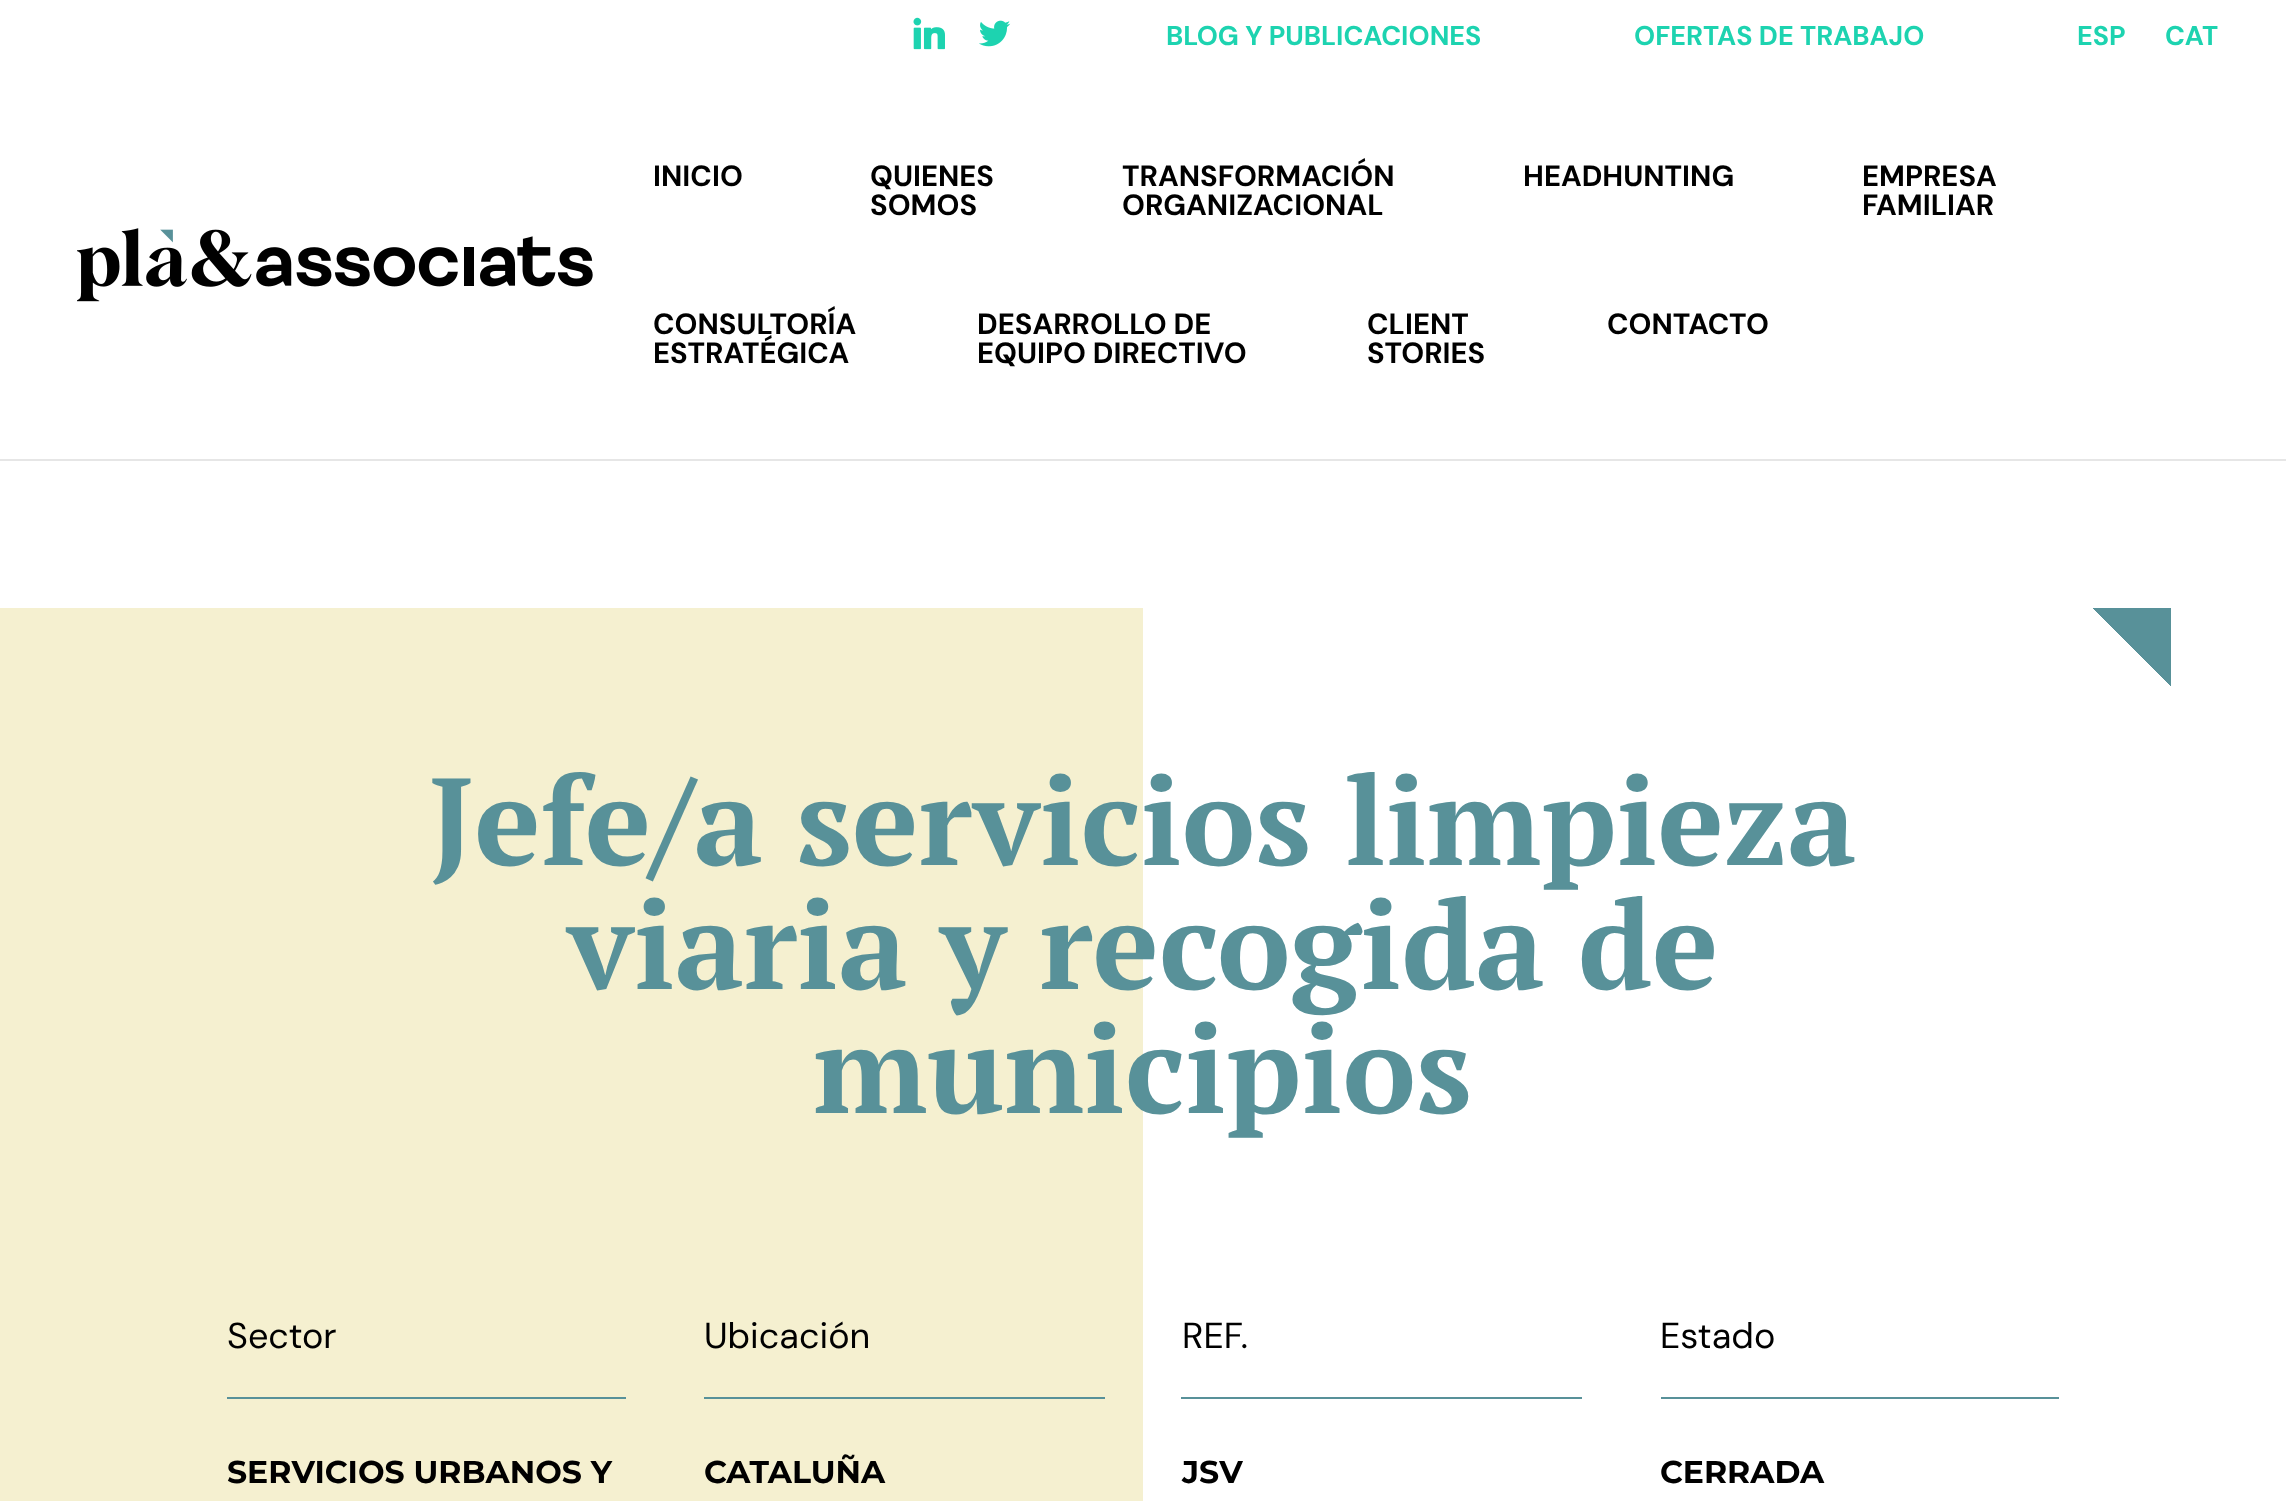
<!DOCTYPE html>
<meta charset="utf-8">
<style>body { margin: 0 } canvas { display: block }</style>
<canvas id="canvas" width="2286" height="1501"></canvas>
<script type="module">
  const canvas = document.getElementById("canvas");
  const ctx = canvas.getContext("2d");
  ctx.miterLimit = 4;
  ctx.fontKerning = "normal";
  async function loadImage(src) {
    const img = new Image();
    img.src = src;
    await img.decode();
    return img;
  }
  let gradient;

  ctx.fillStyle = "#ffffff";
  ctx.fillRect(0, 0, 2286, 1501);
  ctx.drawImage(await loadImage("img1.png"), 913, 17, 32, 33);
  ctx.drawImage(await loadImage("img2.png"), 979, 20, 32, 27);
  ctx.font = "bold 27px DM Sans";
  ctx.fillStyle = "#1dd3b0";
  ctx.fillText("BLOG Y PUBLICACIONES", 1166, 45);
  ctx.fillText("OFERTAS DE TRABAJO", 1634, 45);
  ctx.fillText("ESP", 2077, 45);
  ctx.fillText("CAT", 2165, 45);
  ctx.fillStyle = "#e6e6e6";
  ctx.fillRect(0, 459, 2286, 2);
  ctx.drawImage(await loadImage("img3.png"), 77, 228, 516, 74);
  ctx.font = "bold 29.25px DM Sans";
  ctx.fillStyle = "#000000";
  ctx.fillText("INICIO", 653, 186);
  ctx.fillText("QUIENES", 870, 186);
  ctx.fillText("SOMOS", 870, 215);
  ctx.fillText("TRANSFORMACIÓN", 1122, 186);
  ctx.fillText("ORGANIZACIONAL", 1122, 215);
  ctx.fillText("HEADHUNTING", 1523, 186);
  ctx.fillText("EMPRESA", 1862, 186);
  ctx.fillText("FAMILIAR", 1862, 215);
  ctx.fillText("CONSULTORÍA", 653, 334);
  ctx.fillText("ESTRATÉGICA", 653, 363);
  ctx.fillText("DESARROLLO DE", 977, 334);
  ctx.fillText("EQUIPO DIRECTIVO", 977, 363);
  ctx.fillText("CLIENT", 1367, 334);
  ctx.fillText("STORIES", 1367, 363);
  ctx.fillText("CONTACTO", 1607, 334);
  ctx.fillStyle = "#f5f0d0";
  ctx.fillRect(0, 608, 1143, 893);
  gradient = ctx.createLinearGradient(1805, 241, 482, 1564);
  gradient.addColorStop(0.03, "#589199");
  gradient.addColorStop(0.03, "rgba(88, 145, 153, 0)");
  ctx.fillStyle = gradient;
  ctx.fillRect(2093, 608, 78, 78);
  ctx.font = "bold 123.75px PT Serif";
  ctx.fillStyle = "#589199";
  ctx.fillText("Jefe/a servicios limpieza", 429, 865);
  ctx.fillText("viaria y recogida de", 567, 989);
  ctx.fillText("municipios", 813, 1113);
  ctx.font = "36px DM Sans";
  ctx.fillStyle = "#000000";
  ctx.fillText("Sector", 227, 1348);
  ctx.fillStyle = "#589199";
  ctx.fillRect(227, 1397, 399, 2);
  ctx.font = "bold 31.5px Montserrat";
  ctx.fillStyle = "#000000";
  ctx.fillText("SERVICIOS URBANOS Y", 227, 1483);
  ctx.font = "36px DM Sans";
  ctx.fillText("Ubicación", 704, 1348);
  ctx.fillStyle = "#589199";
  ctx.fillRect(704, 1397, 401, 2);
  ctx.font = "bold 31.5px Montserrat";
  ctx.fillStyle = "#000000";
  ctx.fillText("CATALUÑA", 704, 1483);
  ctx.font = "36px DM Sans";
  ctx.fillText("REF.", 1182, 1348);
  ctx.fillStyle = "#589199";
  ctx.fillRect(1181, 1397, 401, 2);
  ctx.font = "bold 31.5px Montserrat";
  ctx.fillStyle = "#000000";
  ctx.fillText("JSV", 1182, 1483);
  ctx.font = "36px DM Sans";
  ctx.fillText("Estado", 1660, 1348);
  ctx.fillStyle = "#589199";
  ctx.fillRect(1661, 1397, 398, 2);
  ctx.font = "bold 31.5px Montserrat";
  ctx.fillStyle = "#000000";
  ctx.fillText("CERRADA", 1660, 1483);
</script>
